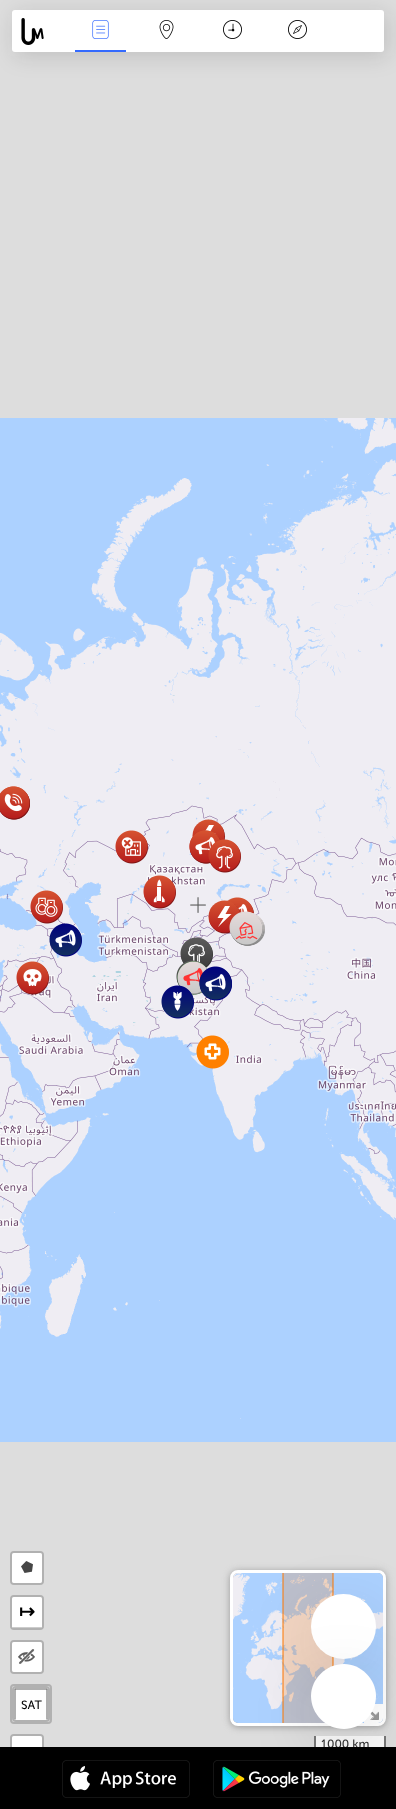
<!DOCTYPE html>
<meta charset="utf-8">
<style>body { margin: 0 } canvas { display: block }</style>
<canvas id="canvas" width="396" height="1809"></canvas>
<script type="module">
  const canvas = document.getElementById("canvas");
  const ctx = canvas.getContext("2d");
  ctx.miterLimit = 4;
  ctx.fontKerning = "normal";
  async function loadImage(src) {
    const img = new Image();
    img.src = src;
    await img.decode();
    return img;
  }
  let gradient;

  ctx.fillStyle = "#dddddd";
  ctx.fillRect(0, 0, 396, 1809);
  ctx.fillStyle = "#999999";
  ctx.filter = "blur(3.5px)";
  ctx.beginPath();
  ctx.roundRect(230, 1571, 156, 156, 8);
  ctx.fill();
  ctx.filter = "none";
  ctx.beginPath();
  ctx.roundRect(231.5, 1571.5, 153, 153, 6.5);
  ctx.strokeStyle = "#ffffff";
  ctx.lineWidth = 3;
  ctx.stroke();
  ctx.drawImage(await loadImage("img48.png"), 233, 1573, 150, 150);
  ctx.fillStyle = "rgba(255, 120, 0, 0.2)";
  ctx.fillRect(283, 1573, 50, 150);
  ctx.save();
  ctx.beginPath();
  ctx.roundRect(233, 1573, 150, 150, 5);
  ctx.clip();
  ctx.beginPath();
  ctx.moveTo(283, 1739);
  ctx.lineTo(283, 1557);
  ctx.lineTo(333, 1557);
  ctx.lineTo(333, 1739);
  ctx.closePath();
  ctx.strokeStyle = "#ff7800";
  ctx.lineWidth = 1;
  ctx.lineCap = "round";
  ctx.lineJoin = "round";
  ctx.stroke();
  ctx.restore();
  ctx.fillStyle = "#ffffff";
  ctx.beginPath();
  ctx.roundRect(364, 1704, 19, 19, [2, 0, 5, 0]);
  ctx.fill();
  ctx.drawImage(await loadImage("img49.png"), 370, 1711, 9, 9);
  ctx.fillStyle = "#f8f8f8";
  ctx.fillRect(316, 1736, 68, 11);
  ctx.fillStyle = "#777777";
  ctx.fillRect(384, 1736, 2, 19);
  ctx.fillRect(314, 1736, 2, 19);
  ctx.beginPath();
  ctx.roundRect(11, 1735, 32, 63, 3);
  ctx.strokeStyle = "#b1b1b1";
  ctx.lineWidth = 2;
  ctx.stroke();
  ctx.fillStyle = "#ffffff";
  ctx.beginPath();
  ctx.roundRect(12, 1736, 30, 31, [2, 2, 0, 0]);
  ctx.fill();
  ctx.font = "12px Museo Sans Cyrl";
  ctx.fillStyle = "#333333";
  ctx.fillText("1000 km", 321, 1748);
  ctx.fillStyle = "#000000";
  ctx.fillRect(0, 1747, 396, 62);
  ctx.drawImage(await loadImage("img51.png"), 213, 1760, 128, 38);
  ctx.fillStyle = "rgba(16, 15, 15, 0.14)";
  ctx.filter = "blur(32.5px)";
  ctx.beginPath();
  ctx.roundRect(313, 1611, 61, 61, 30.5);
  ctx.fill();
  ctx.filter = "none";
  ctx.fillStyle = "#ffffff";
  ctx.beginPath();
  ctx.arc(343.5, 1626.5, 32.5, 0, Math.PI * 2);
  ctx.fill();
  ctx.fillStyle = "rgba(16, 15, 15, 0.14)";
  ctx.filter = "blur(32.5px)";
  ctx.beginPath();
  ctx.roundRect(313, 1681, 61, 61, 30.5);
  ctx.fill();
  ctx.filter = "none";
  ctx.fillStyle = "#ffffff";
  ctx.beginPath();
  ctx.moveTo(344, 1729);
  ctx.bezierCurveTo(326, 1729, 311, 1714, 311, 1696);
  ctx.bezierCurveTo(311, 1679, 326, 1664, 344, 1664);
  ctx.bezierCurveTo(361, 1664, 376, 1679, 376, 1696);
  ctx.bezierCurveTo(376, 1714, 361, 1729, 344, 1729);
  ctx.closePath();
  ctx.fill();
  ctx.fillStyle = "rgba(16, 15, 15, 0.14)";
  ctx.filter = "blur(11px)";
  ctx.beginPath();
  ctx.roundRect(15, 14, 372, 42, 3);
  ctx.fill();
  ctx.filter = "none";
  ctx.fillStyle = "#ffffff";
  ctx.beginPath();
  ctx.roundRect(12, 10, 372, 42, 3);
  ctx.fill();
  ctx.drawImage(await loadImage("img1.png"), 21, 18, 23, 27);
  ctx.fillStyle = "#346afe";
  ctx.fillRect(75, 50, 51, 2);
  ctx.drawImage(await loadImage("img2.png"), 92, 20, 17, 19);
  ctx.drawImage(await loadImage("img3.png"), 159, 20, 15, 19);
  ctx.drawImage(await loadImage("img4.png"), 223, 20, 19, 19);
  ctx.drawImage(await loadImage("img5.png"), 288, 20, 19, 19);
  ctx.drawImage(await loadImage("img6.png"), 0, 418, 55, 256);
  ctx.drawImage(await loadImage("img7.png"), 55, 418, 256, 256);
  ctx.drawImage(await loadImage("img8.png"), 311, 418, 85, 256);
  ctx.drawImage(await loadImage("img9.png"), 0, 674, 55, 256);
  ctx.drawImage(await loadImage("img10.png"), 55, 674, 256, 256);
  ctx.drawImage(await loadImage("img11.png"), 311, 674, 85, 256);
  ctx.drawImage(await loadImage("img12.png"), 0, 930, 55, 256);
  ctx.drawImage(await loadImage("img13.png"), 55, 930, 256, 256);
  ctx.drawImage(await loadImage("img14.png"), 311, 930, 85, 256);
  ctx.drawImage(await loadImage("img15.png"), 0, 1186, 55, 256);
  ctx.drawImage(await loadImage("img16.png"), 55, 1186, 256, 256);
  ctx.drawImage(await loadImage("img17.png"), 311, 1186, 85, 256);
  ctx.drawImage(await loadImage("img18.png"), 0, 786, 30, 34);
  ctx.drawImage(await loadImage("img19.png"), 0, 786, 30, 34);
  ctx.drawImage(await loadImage("img20.png"), 115, 830, 33, 34);
  ctx.fillStyle = "#801615";
  ctx.beginPath();
  ctx.arc(209, 836.5, 16, 0, Math.PI * 2);
  ctx.fill();
  gradient = ctx.createLinearGradient(208, 819, 208, 852);
  gradient.addColorStop(0, "#d65431");
  gradient.addColorStop(1, "#b51c1c");
  ctx.fillStyle = gradient;
  ctx.beginPath();
  ctx.arc(208.5, 835.5, 16, 0, Math.PI * 2);
  ctx.fill();
  ctx.fillStyle = "#ffffff";
  ctx.beginPath();
  ctx.moveTo(214, 825);
  ctx.lineTo(209.5, 833);
  ctx.lineTo(215.5, 833);
  ctx.lineTo(202, 846);
  ctx.lineTo(207.5, 837);
  ctx.lineTo(201.5, 837);
  ctx.lineTo(209, 825);
  ctx.fill();
  ctx.drawImage(await loadImage("img21.png"), 189, 830, 32, 34);
  ctx.drawImage(await loadImage("img22.png"), 189, 830, 32, 34);
  ctx.drawImage(await loadImage("img23.png"), 208, 839, 33, 34);
  ctx.drawImage(await loadImage("img24.png"), 30, 890, 33, 34);
  ctx.drawImage(await loadImage("img25.png"), 143, 875, 33, 34);
  ctx.drawImage(await loadImage("img26.png"), 226, 897, 24, 7);
  ctx.drawImage(await loadImage("img27.png"), 227, 897, 27, 17);
  ctx.fillStyle = "#801615";
  ctx.beginPath();
  ctx.arc(225, 917.5, 16, 0, Math.PI * 2);
  ctx.fill();
  gradient = ctx.createLinearGradient(224, 900, 224, 933);
  gradient.addColorStop(0, "#d65431");
  gradient.addColorStop(1, "#b51c1c");
  ctx.fillStyle = gradient;
  ctx.beginPath();
  ctx.arc(224.5, 916.5, 16, 0, Math.PI * 2);
  ctx.fill();
  ctx.fillStyle = "#ffffff";
  ctx.beginPath();
  ctx.moveTo(230, 906);
  ctx.lineTo(225.5, 914);
  ctx.lineTo(231.5, 914);
  ctx.lineTo(218, 927);
  ctx.lineTo(223.5, 918);
  ctx.lineTo(217.5, 918);
  ctx.lineTo(225, 906);
  ctx.fill();
  ctx.drawImage(await loadImage("img28.png"), 229, 911, 27, 34);
  ctx.drawImage(await loadImage("img32.png"), 231, 913, 25, 33);
  ctx.drawImage(await loadImage("img31.png"), 238, 912, 27, 34);
  ctx.drawImage(await loadImage("img36.png"), 233, 916, 28, 30);
  ctx.drawImage(await loadImage("img29.png"), 234, 912, 30, 34);
  ctx.drawImage(await loadImage("img30.png"), 234, 912, 30, 34);
  ctx.drawImage(await loadImage("img33.png"), 232, 916, 31, 30);
  ctx.drawImage(await loadImage("img34.png"), 49, 923, 33, 34);
  ctx.drawImage(await loadImage("img35.png"), 180, 937, 33, 31);
  ctx.drawImage(await loadImage("img37.png"), 16, 961, 33, 34);
  ctx.drawImage(await loadImage("img38.png"), 176, 960, 31, 26);
  ctx.drawImage(await loadImage("img39.png"), 177, 961, 30, 34);
  ctx.drawImage(await loadImage("img40.png"), 177, 961, 30, 34);
  ctx.drawImage(await loadImage("img41.png"), 199, 966, 33, 33);
  ctx.drawImage(await loadImage("img42.png"), 161, 985, 33, 34);
  ctx.drawImage(await loadImage("img43.png"), 199, 972, 33, 29);
  ctx.drawImage(await loadImage("img44.png"), 196, 1035, 33, 34);
  ctx.drawImage(await loadImage("img45.png"), 190, 897, 16, 16);
  ctx.beginPath();
  ctx.roundRect(11, 1552, 32, 32, 3);
  ctx.stroke();
  ctx.beginPath();
  ctx.roundRect(12, 1553, 30, 30, 2);
  ctx.fill();
  ctx.drawImage(await loadImage("img46.png"), 21, 1561, 12, 12);
  ctx.beginPath();
  ctx.roundRect(11, 1596, 32, 33, 3);
  ctx.stroke();
  ctx.beginPath();
  ctx.roundRect(12, 1597, 30, 31, [2, 2, 0, 0]);
  ctx.fill();
  ctx.fillStyle = "#cccccc";
  ctx.fillRect(12, 1627, 30, 1);
  ctx.font = "bold 19px DejaVu Sans";
  ctx.fillStyle = "#000000";
  ctx.fillText("↦", 19, 1618);
  ctx.beginPath();
  ctx.roundRect(11, 1641, 32, 32, 3);
  ctx.stroke();
  ctx.fillStyle = "#ffffff";
  ctx.beginPath();
  ctx.roundRect(12, 1642, 30, 30, 2);
  ctx.fill();
  ctx.drawImage(await loadImage("img47.png"), 18, 1649, 17, 15);
  ctx.beginPath();
  ctx.roundRect(11, 1685, 40, 38, 3);
  ctx.stroke();
  ctx.beginPath();
  ctx.roundRect(13, 1687, 36, 34, 3);
  ctx.stroke();
  ctx.beginPath();
  ctx.moveTo(16, 1690);
  ctx.lineTo(46, 1690);
  ctx.lineTo(46, 1720);
  ctx.lineTo(16, 1720);
  ctx.lineTo(16, 1718);
  ctx.closePath();
  ctx.fill();
  ctx.fillStyle = "rgba(0, 0, 0, 0.2)";
  ctx.fillRect(15, 1688, 32, 2);
  ctx.fillRect(46, 1689, 2, 30);
  ctx.fillRect(14, 1689, 2, 30);
  ctx.font = "12px Museo Sans Cyrl";
  ctx.fillStyle = "#000000";
  ctx.fillText("SAT", 21, 1709);
  ctx.drawImage(await loadImage("img50.png"), 62, 1760, 128, 38);
</script>
